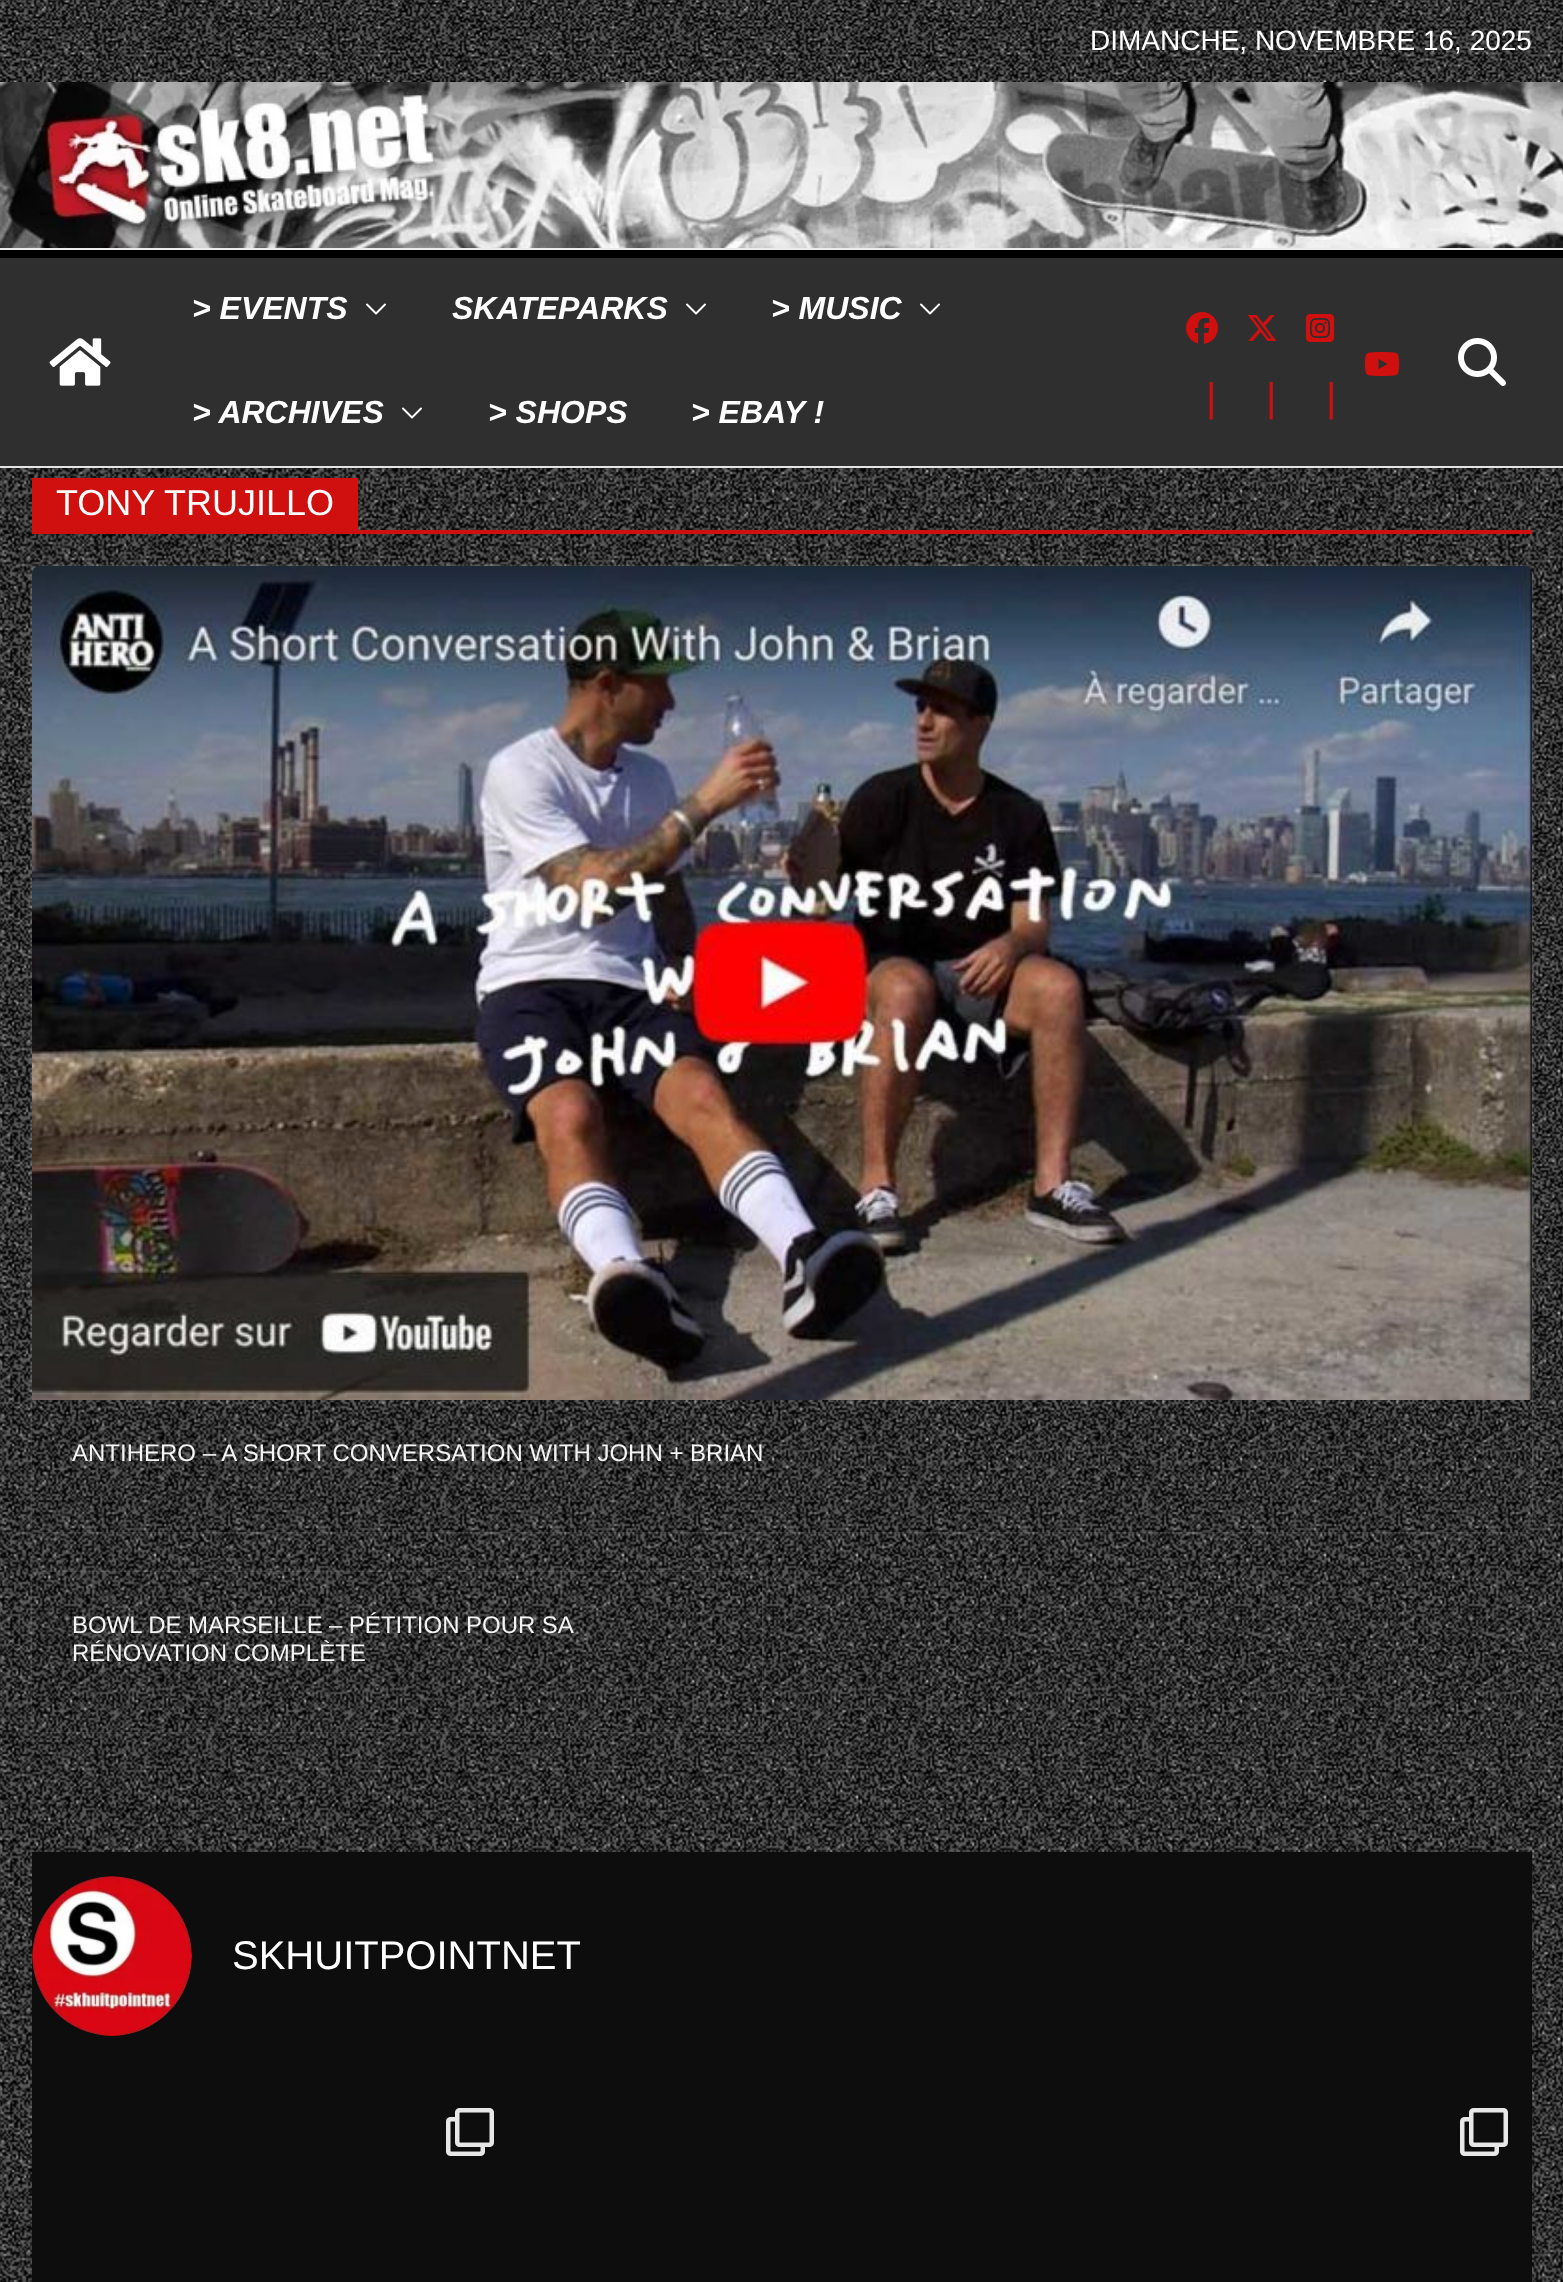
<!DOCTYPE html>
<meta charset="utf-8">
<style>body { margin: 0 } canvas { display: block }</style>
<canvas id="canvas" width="1563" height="2282"></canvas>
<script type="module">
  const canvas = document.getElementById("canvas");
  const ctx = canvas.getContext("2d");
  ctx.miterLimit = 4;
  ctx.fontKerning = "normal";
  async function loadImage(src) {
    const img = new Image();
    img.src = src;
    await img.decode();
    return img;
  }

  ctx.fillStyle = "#e4e4e7";
  ctx.fillRect(0, 0, 1563, 2282);
  ctx.drawImage(await loadImage("img1.png"), 0, 0, 1563, 82);
  ctx.font = "28px Liberation Sans";
  ctx.fillStyle = "#ffffff";
  ctx.fillText("DIMANCHE, NOVEMBRE 16, 2025", 1090, 50);
  ctx.drawImage(await loadImage("img2.png"), 0, 82, 1563, 166);
  ctx.fillStyle = "#ebebeb";
  ctx.fillRect(0, 248, 1563, 2);
  ctx.fillStyle = "#2f2f2f";
  ctx.fillRect(0, 258, 1563, 208);
  ctx.fillStyle = "#000000";
  ctx.fillRect(0, 250, 1563, 8);
  ctx.drawImage(await loadImage("img3.png"), 49, 338, 62, 48);
  ctx.font = "italic bold 32px Liberation Sans";
  ctx.fillStyle = "#ffffff";
  ctx.fillText("> EVENTS", 192, 319);
  ctx.drawImage(await loadImage("img4.png"), 366, 303, 20, 12);
  ctx.fillText("SKATEPARKS", 452, 319);
  ctx.drawImage(await loadImage("img4.png"), 686, 303, 20, 12);
  ctx.fillText("> MUSIC", 771, 319);
  ctx.drawImage(await loadImage("img4.png"), 920, 303, 20, 12);
  ctx.fillText("> ARCHIVES", 192, 423);
  ctx.drawImage(await loadImage("img4.png"), 402, 407, 20, 12);
  ctx.fillText("> SHOPS", 488, 423);
  ctx.fillText("> EBAY !", 691, 423);
  ctx.drawImage(await loadImage("img5.png"), 1458, 338, 48, 48);
  ctx.drawImage(await loadImage("img6.png"), 1364, 352, 36, 24);
  ctx.drawImage(await loadImage("img7.png"), 1186, 312, 32, 32);
  ctx.font = "40px Liberation Sans";
  ctx.fillStyle = "#d00f0f";
  ctx.fillText("|", 1206, 411);
  ctx.drawImage(await loadImage("img8.png"), 1247, 315, 30, 26);
  ctx.fillText("|", 1266, 411);
  ctx.drawImage(await loadImage("img9.png"), 1306, 314, 28, 28);
  ctx.fillText("|", 1326, 411);
  ctx.drawImage(await loadImage("img10.png"), 0, 468, 1563, 1814);
  ctx.fillRect(32, 530, 1500, 4);
  ctx.fillRect(32, 478, 326, 52);
  ctx.font = "36px Liberation Sans";
  ctx.fillStyle = "#ffffff";
  ctx.fillText("TONY TRUJILLO", 56, 515);
  ctx.save();
  ctx.beginPath();
  ctx.moveTo(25, 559);
  ctx.lineTo(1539, 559);
  ctx.lineTo(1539, 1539);
  ctx.lineTo(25, 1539);
  ctx.closePath();
  ctx.moveTo(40, 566);
  ctx.lineTo(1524, 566);
  ctx.bezierCurveTo(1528.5, 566, 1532, 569.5, 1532, 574);
  ctx.lineTo(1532, 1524);
  ctx.bezierCurveTo(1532, 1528.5, 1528.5, 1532, 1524, 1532);
  ctx.lineTo(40, 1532);
  ctx.bezierCurveTo(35.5, 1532, 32, 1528.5, 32, 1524);
  ctx.lineTo(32, 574);
  ctx.bezierCurveTo(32, 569.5, 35.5, 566, 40, 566);
  ctx.closePath();
  ctx.clip("evenodd");
  ctx.fillStyle = "rgba(255, 255, 255, 0.24)";
  ctx.filter = "blur(2px)";
  ctx.beginPath();
  ctx.roundRect(32, 566, 1500, 966, 8);
  ctx.fill();
  ctx.filter = "none";
  ctx.restore();
  ctx.drawImage(await loadImage("img11.png"), 32, 566, 1500, 834);
  ctx.font = "24px Liberation Sans";
  ctx.fillStyle = "#f4f4f5";
  ctx.fillText("ANTIHERO – A SHORT CONVERSATION WITH JOHN + BRIAN", 72, 1461);
  ctx.save();
  ctx.beginPath();
  ctx.moveTo(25, 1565);
  ctx.lineTo(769, 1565);
  ctx.lineTo(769, 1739);
  ctx.lineTo(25, 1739);
  ctx.closePath();
  ctx.moveTo(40, 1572);
  ctx.lineTo(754, 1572);
  ctx.bezierCurveTo(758.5, 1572, 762, 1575.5, 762, 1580);
  ctx.lineTo(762, 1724);
  ctx.bezierCurveTo(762, 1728.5, 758.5, 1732, 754, 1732);
  ctx.lineTo(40, 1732);
  ctx.bezierCurveTo(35.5, 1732, 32, 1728.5, 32, 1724);
  ctx.lineTo(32, 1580);
  ctx.bezierCurveTo(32, 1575.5, 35.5, 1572, 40, 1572);
  ctx.closePath();
  ctx.clip("evenodd");
  ctx.fillStyle = "rgba(255, 255, 255, 0.24)";
  ctx.filter = "blur(2px)";
  ctx.beginPath();
  ctx.roundRect(32, 1572, 730, 160, 8);
  ctx.fill();
  ctx.filter = "none";
  ctx.restore();
  ctx.wordSpacing = "-0.25px";
  ctx.fillText("BOWL DE MARSEILLE – PÉTITION POUR SA", 72, 1633);
  ctx.wordSpacing = "0px";
  ctx.fillText("RÉNOVATION COMPLÈTE", 72, 1661);
  ctx.fillStyle = "#0d0d0d";
  ctx.fillRect(32, 1852, 1500, 430);
  ctx.drawImage(await loadImage("img12.png"), 32, 1876, 160, 160);
  ctx.font = "40px Liberation Sans";
  ctx.fillStyle = "#ffffff";
  ctx.fillText("SKHUITPOINTNET", 232, 1969);
  ctx.drawImage(await loadImage("img13.png"), 446, 2108, 48, 48);
  ctx.drawImage(await loadImage("img13.png"), 1460, 2108, 48, 48);
</script>
